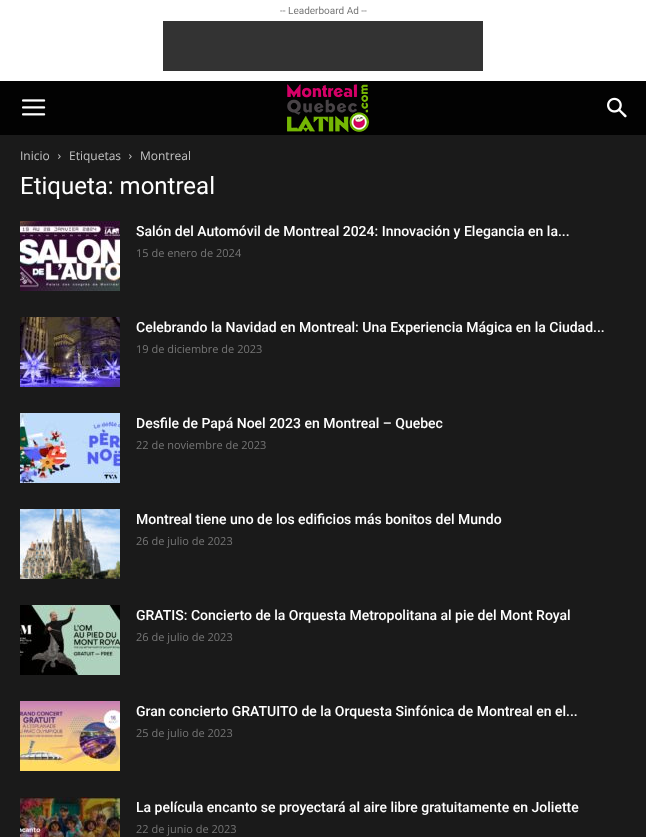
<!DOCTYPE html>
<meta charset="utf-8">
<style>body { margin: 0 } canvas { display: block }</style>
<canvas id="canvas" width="646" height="837"></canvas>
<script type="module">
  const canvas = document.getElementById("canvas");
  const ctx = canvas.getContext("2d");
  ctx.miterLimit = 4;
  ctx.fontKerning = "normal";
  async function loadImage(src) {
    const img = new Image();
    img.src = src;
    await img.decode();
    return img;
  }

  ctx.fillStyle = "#1a1a1a";
  ctx.fillRect(0, 0, 646, 837);
  ctx.fillStyle = "#ffffff";
  ctx.fillRect(0, 0, 646, 81);
  ctx.font = "10px Roboto";
  ctx.fillStyle = "#767676";
  ctx.fillText("-- Leaderboard Ad --", 280, 14);
  ctx.fillStyle = "#333333";
  ctx.fillRect(163, 21, 320, 50);
  ctx.fillStyle = "#020202";
  ctx.fillRect(0, 81, 646, 54);
  ctx.drawImage(await loadImage("img1.png"), 22, 99, 24, 17);
  ctx.drawImage(await loadImage("img2.png"), 287, 84, 82, 48);
  ctx.drawImage(await loadImage("img3.png"), 607, 97, 20, 21);
  ctx.font = "12px Open Sans";
  ctx.fillStyle = "#c3c3c3";
  ctx.fillText("Inicio", 20, 160);
  ctx.drawImage(await loadImage("img4.png"), 58, 154, 3, 5);
  ctx.fillText("Etiquetas", 69, 160);
  ctx.drawImage(await loadImage("img4.png"), 129, 154, 3, 5);
  ctx.fillText("Montreal", 140, 160);
  ctx.font = "24px Roboto";
  ctx.fillStyle = "#ffffff";
  ctx.fillText("Etiqueta: montreal", 20, 194);
  ctx.drawImage(await loadImage("img5.png"), 20, 221, 100, 70);
  ctx.font = "500 14px Roboto";
  ctx.fillText("Salón del Automóvil de Montreal 2024: Innovación y Elegancia en la...", 136, 236);
  ctx.font = "11px Open Sans";
  ctx.fillStyle = "#767676";
  ctx.fillText("15 de enero de 2024", 136, 257);
  ctx.drawImage(await loadImage("img6.png"), 20, 317, 100, 70);
  ctx.font = "500 14px Roboto";
  ctx.fillStyle = "#ffffff";
  ctx.fillText("Celebrando la Navidad en Montreal: Una Experiencia Mágica en la Ciudad...", 136, 332);
  ctx.font = "11px Open Sans";
  ctx.fillStyle = "#767676";
  ctx.fillText("19 de diciembre de 2023", 136, 353);
  ctx.drawImage(await loadImage("img7.png"), 20, 413, 100, 70);
  ctx.font = "500 14px Roboto";
  ctx.fillStyle = "#ffffff";
  ctx.fillText("Desfile de Papá Noel 2023 en Montreal – Quebec", 136, 428);
  ctx.font = "11px Open Sans";
  ctx.fillStyle = "#767676";
  ctx.fillText("22 de noviembre de 2023", 136, 449);
  ctx.drawImage(await loadImage("img8.png"), 20, 509, 100, 70);
  ctx.font = "500 14px Roboto";
  ctx.fillStyle = "#ffffff";
  ctx.fillText("Montreal tiene uno de los edificios más bonitos del Mundo", 136, 524);
  ctx.font = "11px Open Sans";
  ctx.fillStyle = "#767676";
  ctx.fillText("26 de julio de 2023", 136, 545);
  ctx.drawImage(await loadImage("img9.png"), 20, 605, 100, 70);
  ctx.font = "500 14px Roboto";
  ctx.fillStyle = "#ffffff";
  ctx.fillText("GRATIS: Concierto de la Orquesta Metropolitana al pie del Mont Royal", 136, 620);
  ctx.font = "11px Open Sans";
  ctx.fillStyle = "#767676";
  ctx.fillText("26 de julio de 2023", 136, 641);
  ctx.drawImage(await loadImage("img10.png"), 20, 701, 100, 70);
  ctx.font = "500 14px Roboto";
  ctx.fillStyle = "#ffffff";
  ctx.fillText("Gran concierto GRATUITO de la Orquesta Sinfónica de Montreal en el...", 136, 716);
  ctx.font = "11px Open Sans";
  ctx.fillStyle = "#767676";
  ctx.fillText("25 de julio de 2023", 136, 737);
  ctx.drawImage(await loadImage("img11.png"), 20, 797, 100, 40);
  ctx.font = "500 14px Roboto";
  ctx.fillStyle = "#ffffff";
  ctx.fillText("La película encanto se proyectará al aire libre gratuitamente en Joliette", 136, 812);
  ctx.font = "11px Open Sans";
  ctx.fillStyle = "#767676";
  ctx.fillText("22 de junio de 2023", 136, 833);
</script>
